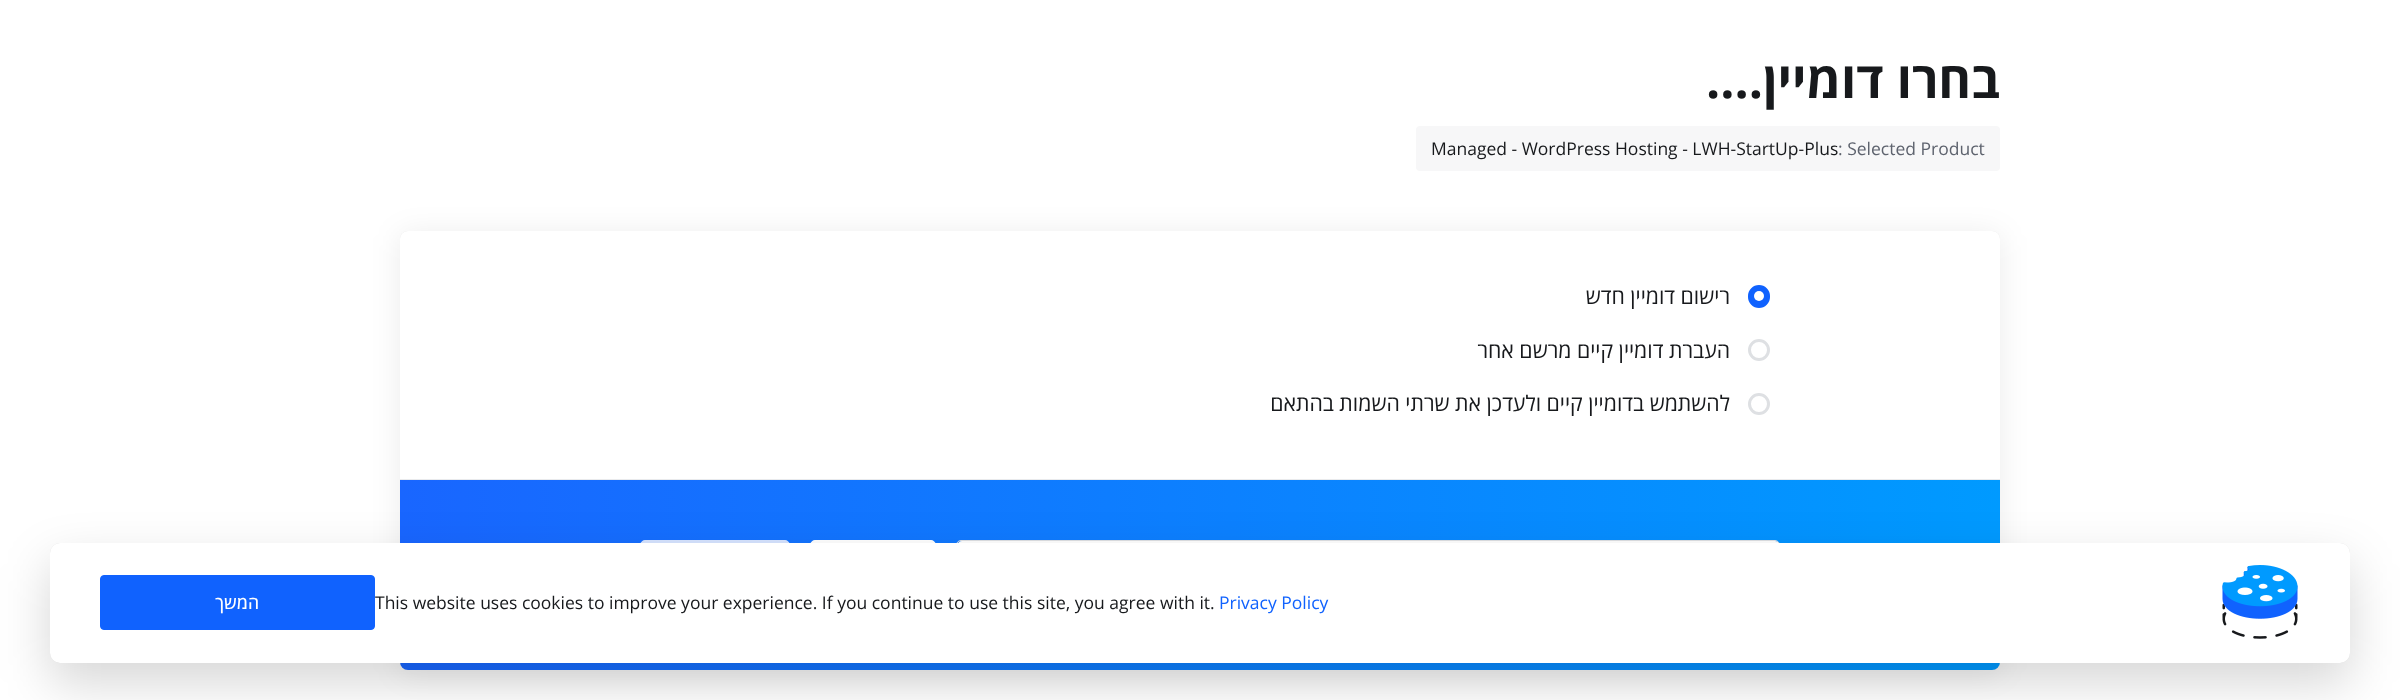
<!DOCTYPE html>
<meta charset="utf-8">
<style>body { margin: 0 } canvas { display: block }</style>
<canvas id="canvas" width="2400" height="700"></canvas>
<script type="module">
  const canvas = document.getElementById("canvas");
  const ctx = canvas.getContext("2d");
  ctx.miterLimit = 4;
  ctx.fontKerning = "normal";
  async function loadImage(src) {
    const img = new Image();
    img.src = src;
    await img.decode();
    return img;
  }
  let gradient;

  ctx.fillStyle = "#ffffff";
  ctx.fillRect(0, 0, 2400, 700);
  ctx.direction = "rtl";
  ctx.font = "bold 50px Open Sans";
  ctx.fillStyle = "#17191c";
  ctx.fillText("בחרו דומיין....", 2000, 98);
  ctx.fillStyle = "#f7f7f8";
  ctx.beginPath();
  ctx.roundRect(1416, 126, 584, 45, 4);
  ctx.fill();
  ctx.direction = "ltr";
  ctx.font = "17.5px Open Sans";
  ctx.fillStyle = "#17191c";
  ctx.fillText("Managed - WordPress Hosting - LWH-StartUp-Plus", 1431, 155);
  ctx.fillStyle = "#5e636e";
  ctx.fillText(": Selected Product", 1838, 155);
  ctx.fillStyle = "rgba(0, 0, 0, 0.08)";
  ctx.filter = "blur(15px)";
  ctx.beginPath();
  ctx.roundRect(400, 234, 1600, 439, 8);
  ctx.fill();
  ctx.filter = "none";
  ctx.fillStyle = "rgba(0, 0, 0, 0.1)";
  ctx.filter = "blur(0.5px)";
  ctx.beginPath();
  ctx.roundRect(400, 231, 1600, 439, 8);
  ctx.fill();
  ctx.filter = "none";
  ctx.fillStyle = "#ffffff";
  ctx.beginPath();
  ctx.roundRect(400, 231, 1600, 439, 8);
  ctx.fill();
  ctx.direction = "rtl";
  ctx.font = "21.25px Open Sans";
  ctx.fillStyle = "#17191c";
  ctx.fillText("רישום דומיין חדש", 1730, 304);
  ctx.fillStyle = "#1062fe";
  ctx.beginPath();
  ctx.roundRect(1749.5, 286.5, 19, 20, 9.5);
  ctx.fill();
  ctx.strokeStyle = "#1062fe";
  ctx.lineWidth = 3;
  ctx.stroke();
  ctx.fillStyle = "#ffffff";
  ctx.beginPath();
  ctx.arc(1759, 296, 5, 0, Math.PI * 2);
  ctx.fill();
  ctx.fillStyle = "#17191c";
  ctx.fillText("העברת דומיין קיים מרשם אחר", 1730, 358);
  ctx.beginPath();
  ctx.arc(1759, 350, 9.5, 0, Math.PI * 2);
  ctx.strokeStyle = "#dee0e3";
  ctx.stroke();
  ctx.fillText("להשתמש בדומיין קיים ולעדכן את שרתי השמות בהתאם", 1730, 411);
  ctx.beginPath();
  ctx.arc(1759, 404, 9.5, 0, Math.PI * 2);
  ctx.stroke();
  gradient = ctx.createLinearGradient(400, 575, 2000, 575);
  gradient.addColorStop(0, "#1966ff");
  gradient.addColorStop(1, "#009aff");
  ctx.fillStyle = gradient;
  ctx.beginPath();
  ctx.roundRect(400, 479, 1600, 191, [0, 0, 8, 8]);
  ctx.fill();
  ctx.fillStyle = "#e9eaec";
  ctx.fillRect(400, 479, 1600, 1);
  ctx.fillStyle = "#d6e4ff";
  ctx.beginPath();
  ctx.roundRect(640.5, 540.5, 149, 69, 4.5);
  ctx.fill();
  ctx.strokeStyle = "#d6e4ff";
  ctx.lineWidth = 1;
  ctx.stroke();
  ctx.fillStyle = "#ffffff";
  ctx.beginPath();
  ctx.roundRect(810.5, 540.5, 125, 69, 4.5);
  ctx.fill();
  ctx.strokeStyle = "#ffffff";
  ctx.stroke();
  ctx.beginPath();
  ctx.roundRect(958, 541, 821, 68, 4);
  ctx.fill();
  ctx.beginPath();
  ctx.roundRect(956.5, 540.5, 823, 69, 4.5);
  ctx.strokeStyle = "#dee0e3";
  ctx.stroke();
  ctx.fillStyle = "rgba(0, 0, 0, 0.16)";
  ctx.filter = "blur(25px)";
  ctx.beginPath();
  ctx.roundRect(50, 563, 2300, 120, 10);
  ctx.fill();
  ctx.filter = "none";
  ctx.fillStyle = "rgba(0, 0, 0, 0.12)";
  ctx.filter = "blur(0.5px)";
  ctx.beginPath();
  ctx.roundRect(50, 543, 2300, 120, 10);
  ctx.fill();
  ctx.filter = "none";
  ctx.fillStyle = "#ffffff";
  ctx.beginPath();
  ctx.roundRect(50, 543, 2300, 120, 10);
  ctx.fill();
  ctx.fillStyle = "#1062fe";
  ctx.beginPath();
  ctx.roundRect(100.5, 575.5, 274, 54, 3.5);
  ctx.fill();
  ctx.strokeStyle = "#1062fe";
  ctx.stroke();
  ctx.font = "500 17.5px Open Sans";
  ctx.fillStyle = "#ffffff";
  ctx.fillText("המשך", 259, 609);
  ctx.direction = "ltr";
  ctx.font = "17.5px Open Sans";
  ctx.fillStyle = "#17191c";
  ctx.fillText("This website uses cookies to improve your experience. If you continue to use this site, you agree with it.", 375, 609);
  ctx.fillStyle = "#1062fe";
  ctx.fillText("Privacy Policy", 1219, 609);
  ctx.drawImage(await loadImage("img1.png"), 2222, 565, 76, 74);
</script>
